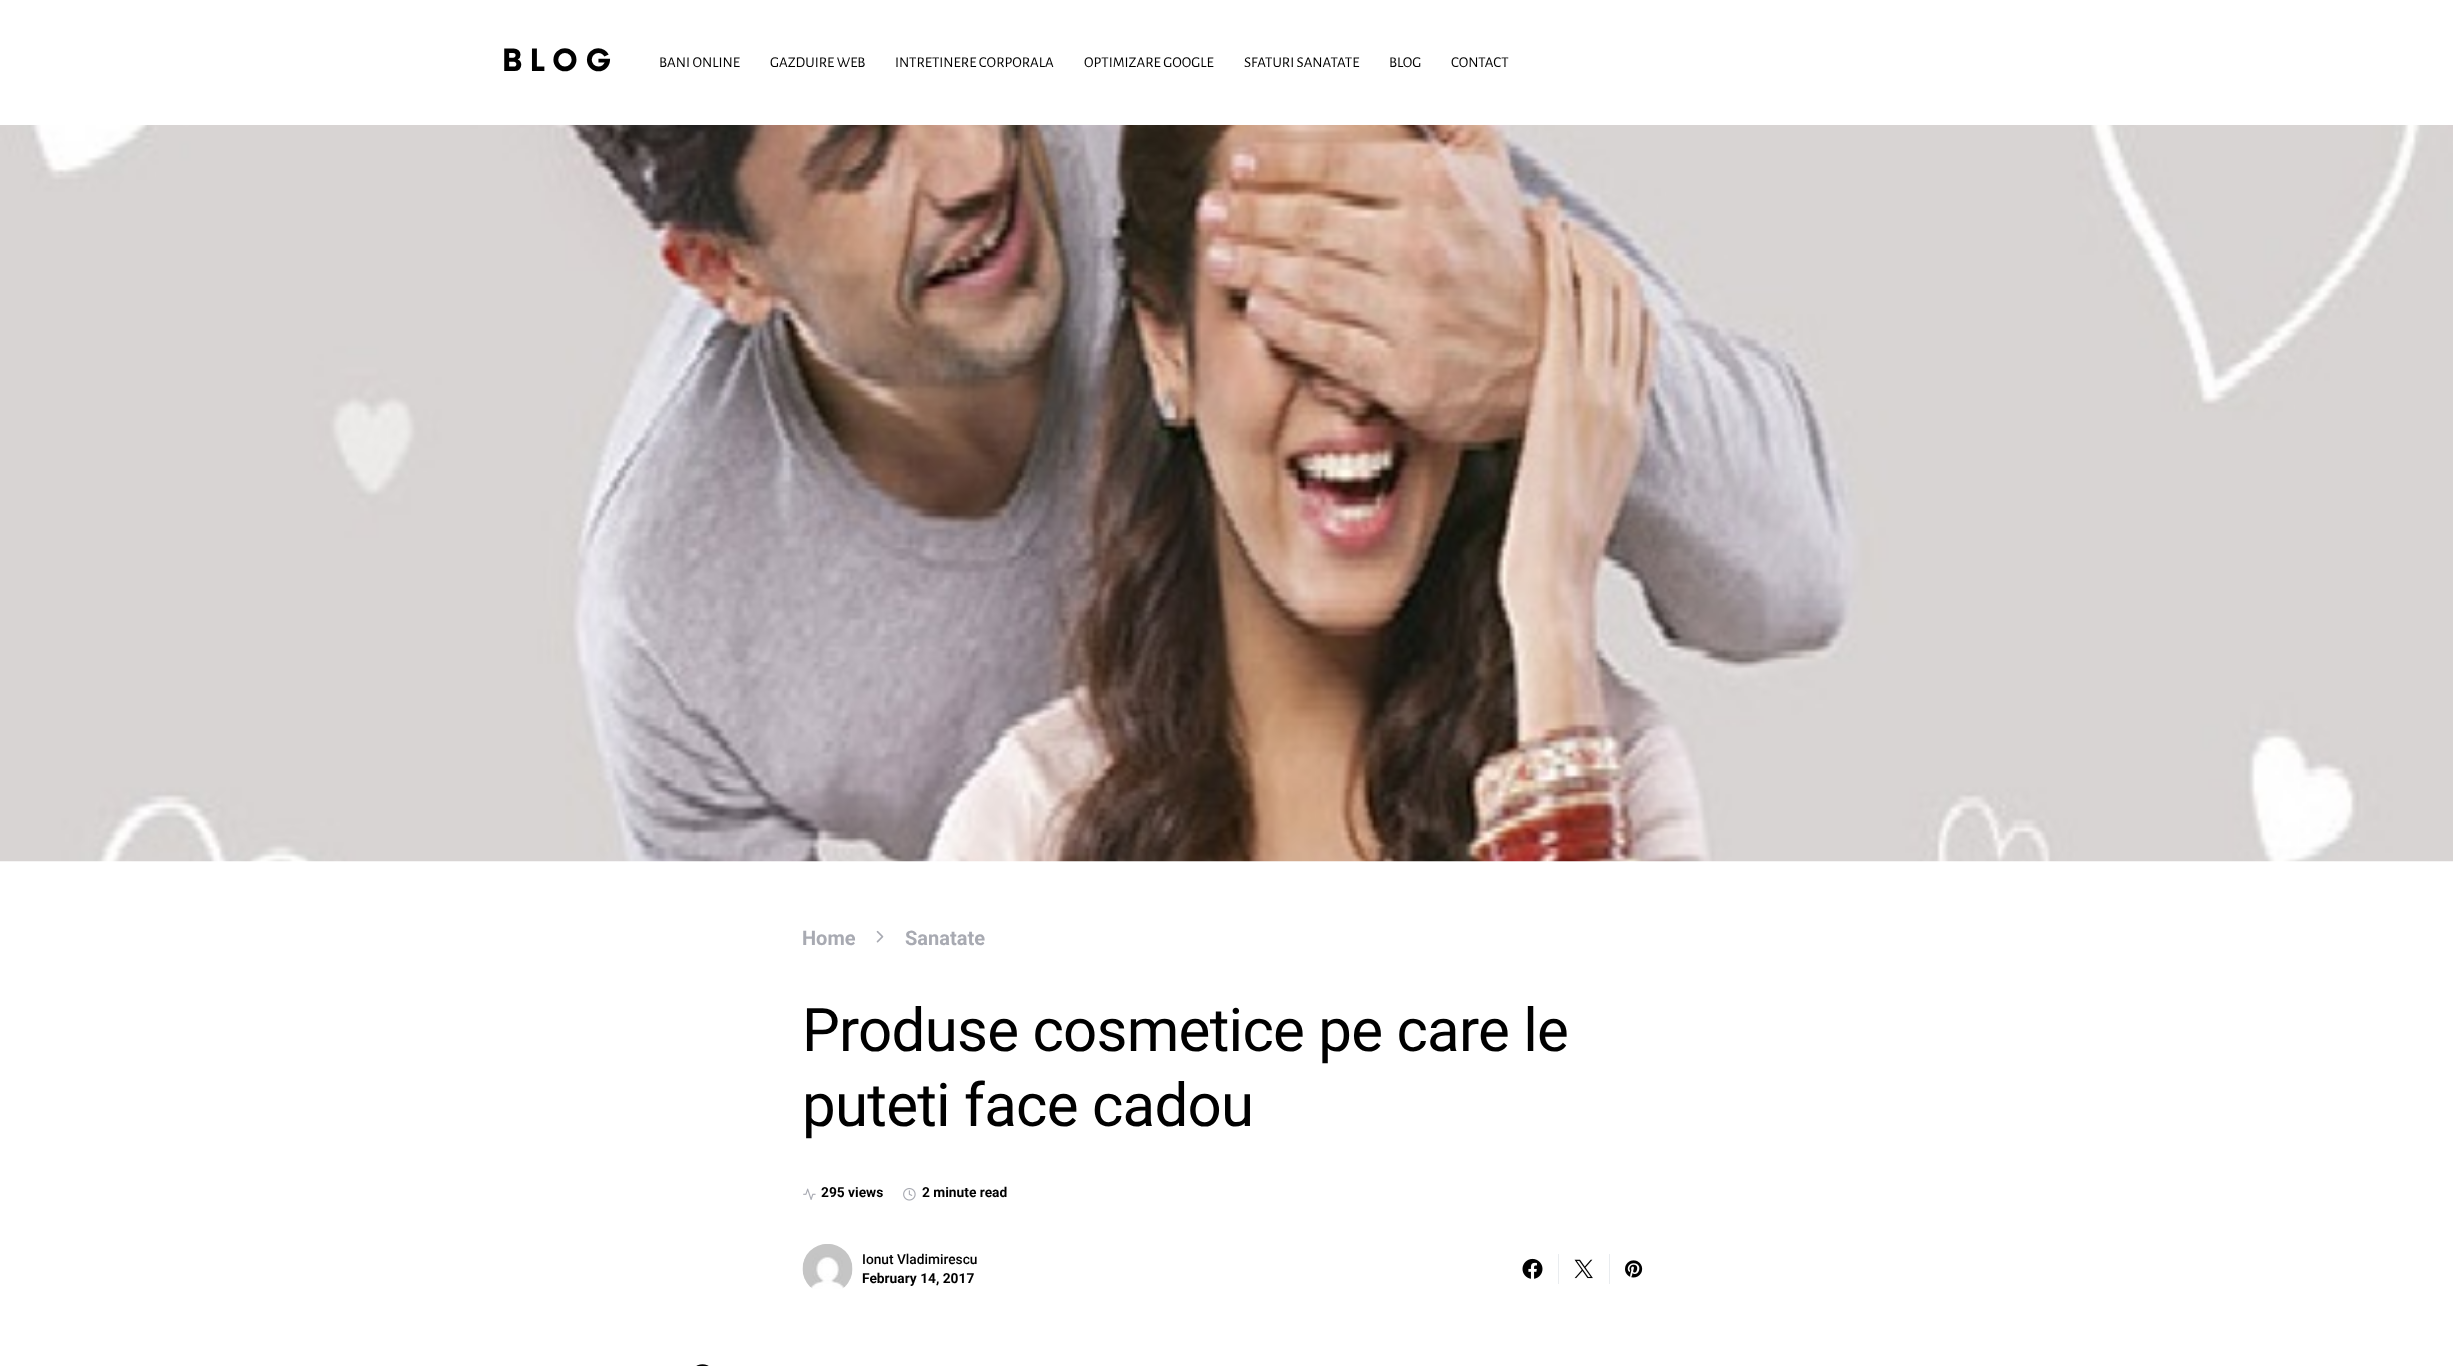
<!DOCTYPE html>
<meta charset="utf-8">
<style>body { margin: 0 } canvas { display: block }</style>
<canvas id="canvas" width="2453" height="1366"></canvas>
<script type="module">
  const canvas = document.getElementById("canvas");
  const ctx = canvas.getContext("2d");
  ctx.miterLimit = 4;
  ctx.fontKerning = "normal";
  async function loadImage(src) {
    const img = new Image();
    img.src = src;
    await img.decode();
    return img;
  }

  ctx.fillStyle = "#ffffff";
  ctx.fillRect(0, 0, 2453, 1366);
  ctx.letterSpacing = "7.5px";
  ctx.font = "bold 30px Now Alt";
  ctx.fillStyle = "#000000";
  ctx.fillText("BLOG", 502, 71);
  ctx.letterSpacing = "0px";
  ctx.font = "15px Alegreya Sans";
  ctx.fillText("BANI ONLINE", 659, 67);
  ctx.fillText("GAZDUIRE WEB", 770, 67);
  ctx.fillText("INTRETINERE CORPORALA", 895, 67);
  ctx.fillText("OPTIMIZARE GOOGLE", 1084, 67);
  ctx.fillText("SFATURI SANATATE", 1244, 67);
  ctx.fillText("BLOG", 1389, 67);
  ctx.fillText("CONTACT", 1451, 67);
  ctx.drawImage(await loadImage("img1.png"), 0, 125, 2453, 737);
  ctx.font = "bold 20px Roboto";
  ctx.fillStyle = "#a8aab2";
  ctx.fillText("Home", 802, 945);
  ctx.drawImage(await loadImage("img2.png"), 876, 930, 8, 13);
  ctx.fillText("Sanatate", 905, 945);
  ctx.letterSpacing = "-0.75px";
  ctx.font = "60px Roboto";
  ctx.fillStyle = "#000000";
  ctx.fillText("Produse cosmetice pe care le", 802, 1051);
  ctx.fillText("puteti face cadou", 802, 1126);
  ctx.drawImage(await loadImage("img3.png"), 803, 1188, 13, 12);
  ctx.letterSpacing = "0px";
  ctx.font = "bold 13.75px Roboto";
  ctx.fillText("295 views", 821, 1197);
  ctx.drawImage(await loadImage("img4.png"), 903, 1188, 13, 13);
  ctx.fillText("2 minute read", 922, 1197);
  ctx.drawImage(await loadImage("img5.png"), 802, 1244, 51, 45);
  ctx.font = "500 13.75px Roboto";
  ctx.fillText("Ionut Vladimirescu", 862, 1264);
  ctx.font = "bold 13.75px Roboto";
  ctx.fillText("February 14, 2017", 862, 1283);
  ctx.fillStyle = "#e9ecef";
  ctx.fillRect(1558, 1254, 1, 30);
  ctx.drawImage(await loadImage("img6.png"), 1522, 1258, 21, 21);
  ctx.fillRect(1609, 1254, 1, 30);
  ctx.drawImage(await loadImage("img7.png"), 1574, 1259, 19, 20);
  ctx.drawImage(await loadImage("img8.png"), 1625, 1260, 18, 18);
  ctx.drawImage(await loadImage("img9.png"), 696, 1364, 13, 2);
</script>
